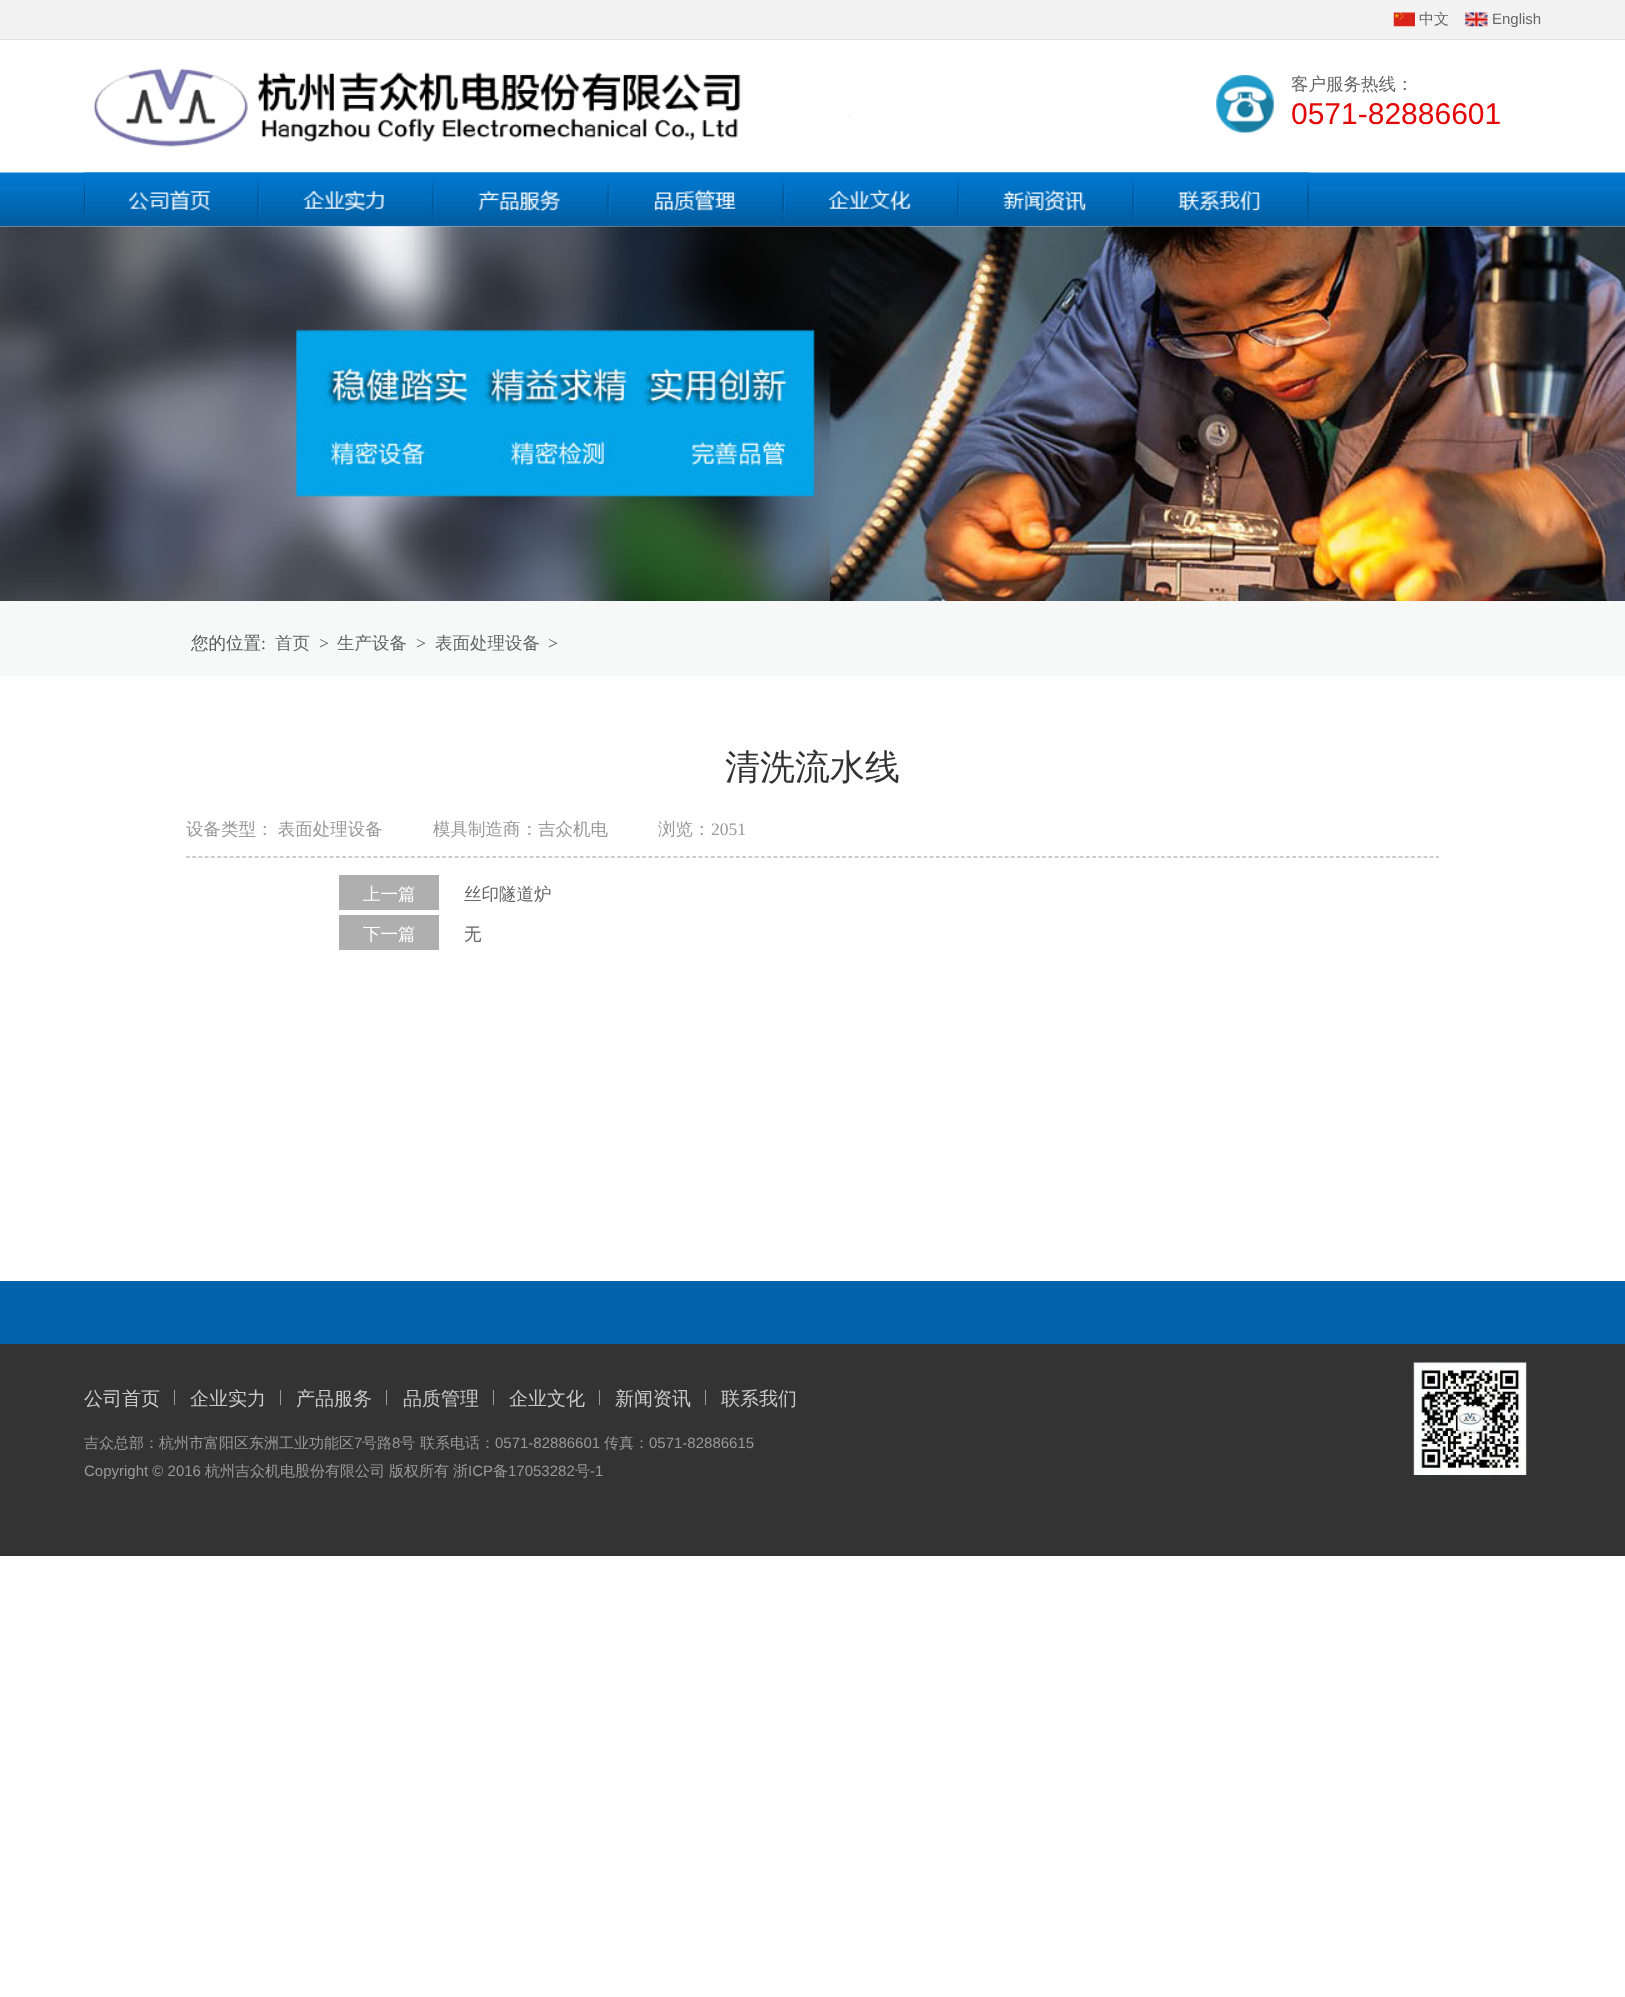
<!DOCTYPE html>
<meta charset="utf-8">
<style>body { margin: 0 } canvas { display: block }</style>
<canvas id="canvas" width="1625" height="1997"></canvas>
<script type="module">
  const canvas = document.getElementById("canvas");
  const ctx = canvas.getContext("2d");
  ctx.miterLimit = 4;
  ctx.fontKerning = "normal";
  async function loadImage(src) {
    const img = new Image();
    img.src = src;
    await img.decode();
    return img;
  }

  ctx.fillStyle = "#ffffff";
  ctx.fillRect(0, 0, 1625, 1997);
  ctx.fillStyle = "#f2f2f2";
  ctx.fillRect(0, 0, 1625, 39);
  ctx.fillStyle = "#e1e1e1";
  ctx.fillRect(0, 39, 1625, 1);
  ctx.drawImage(await loadImage("img1.png"), 1393, 12, 22, 15);
  ctx.font = "500 15px WenQuanYi Zen Hei";
  ctx.fillStyle = "#666666";
  ctx.fillText("中文", 1419, 24);
  ctx.drawImage(await loadImage("img2.png"), 1465, 12, 23, 15);
  ctx.font = "15px Liberation Sans";
  ctx.fillText("English", 1492, 24);
  ctx.drawImage(await loadImage("img3.png"), 93, 68, 757, 79);
  ctx.drawImage(await loadImage("img4.png"), 1216, 75, 58, 58);
  ctx.font = "500 17.5px WenQuanYi Zen Hei";
  ctx.fillText("客户服务热线：", 1291, 90);
  ctx.font = "30px Liberation Sans";
  ctx.fillStyle = "#e60505";
  ctx.fillText("0571-82886601", 1291, 124);
  ctx.drawImage(await loadImage("img5.png"), 0, 172, 1625, 55);
  ctx.drawImage(await loadImage("img6.png"), 84, 172, 175, 55);
  ctx.drawImage(await loadImage("img7.png"), 258, 172, 176, 55);
  ctx.drawImage(await loadImage("img8.png"), 433, 172, 176, 55);
  ctx.drawImage(await loadImage("img9.png"), 608, 172, 176, 55);
  ctx.drawImage(await loadImage("img10.png"), 783, 172, 176, 55);
  ctx.drawImage(await loadImage("img11.png"), 958, 172, 176, 55);
  ctx.drawImage(await loadImage("img12.png"), 1133, 172, 176, 55);
  ctx.drawImage(await loadImage("img13.png"), 0, 226, 1625, 375);
  ctx.fillStyle = "#f7f8f8";
  ctx.fillRect(0, 601, 1625, 75);
  ctx.font = "500 17.5px WenQuanYi Zen Hei";
  ctx.fillStyle = "#555555";
  ctx.fillText("您的位置", 191, 649);
  ctx.font = "17.5px Liberation Serif";
  ctx.fillText(":", 261, 649);
  ctx.font = "500 17.5px WenQuanYi Zen Hei";
  ctx.fillStyle = "#666666";
  ctx.fillText("首页", 275, 649);
  ctx.font = "17.5px Liberation Serif";
  ctx.fillStyle = "#555555";
  ctx.fillText(">", 319, 649);
  ctx.font = "500 17.5px WenQuanYi Zen Hei";
  ctx.fillStyle = "#666666";
  ctx.fillText("生产设备", 337, 649);
  ctx.font = "17.5px Liberation Serif";
  ctx.fillStyle = "#555555";
  ctx.fillText(">", 416, 649);
  ctx.font = "500 17.5px WenQuanYi Zen Hei";
  ctx.fillStyle = "#666666";
  ctx.fillText("表面处理设备", 435, 649);
  ctx.font = "17.5px Liberation Serif";
  ctx.fillStyle = "#555555";
  ctx.fillText(">", 548, 649);
  ctx.font = "500 35px WenQuanYi Zen Hei";
  ctx.fillStyle = "#333333";
  ctx.fillText("清洗流水线", 725, 779);
  ctx.beginPath();
  ctx.moveTo(186, 857);
  ctx.lineTo(1439, 857);
  ctx.strokeStyle = "#999999";
  ctx.lineWidth = 1.2;
  ctx.setLineDash([3.75, 2.5]);
  ctx.stroke();
  ctx.wordSpacing = "-1px";
  ctx.font = "500 17.5px WenQuanYi Zen Hei";
  ctx.fillStyle = "#999999";
  ctx.fillText("设备类型： 表面处理设备", 186, 835);
  ctx.wordSpacing = "0px";
  ctx.fillText("模具制造商：吉众机电", 433, 835);
  ctx.fillText("浏览：", 658, 835);
  ctx.font = "17.5px Liberation Serif";
  ctx.fillText("2051", 711, 835);
  ctx.fillStyle = "#afafaf";
  ctx.fillRect(339, 875, 100, 35);
  ctx.font = "500 17.5px WenQuanYi Zen Hei";
  ctx.fillStyle = "#ffffff";
  ctx.fillText("上一篇", 363, 900);
  ctx.fillStyle = "#666666";
  ctx.fillText("丝印隧道炉", 464, 900);
  ctx.fillStyle = "#afafaf";
  ctx.fillRect(339, 915, 100, 35);
  ctx.fillStyle = "#ffffff";
  ctx.fillText("下一篇", 363, 940);
  ctx.fillStyle = "#666666";
  ctx.fillText("无", 464, 940);
  ctx.fillStyle = "#333333";
  ctx.fillRect(0, 1344, 1625, 212);
  ctx.fillStyle = "#0062a9";
  ctx.fillRect(0, 1281, 1625, 63);
  ctx.font = "500 19px WenQuanYi Zen Hei";
  ctx.fillStyle = "#c9c9c9";
  ctx.fillText("公司首页", 84, 1405);
  ctx.fillStyle = "#999999";
  ctx.fillRect(174, 1390, 1, 15);
  ctx.fillStyle = "#c9c9c9";
  ctx.fillText("企业实力", 190, 1405);
  ctx.fillStyle = "#999999";
  ctx.fillRect(280, 1390, 1, 15);
  ctx.fillStyle = "#c9c9c9";
  ctx.fillText("产品服务", 296, 1405);
  ctx.fillStyle = "#999999";
  ctx.fillRect(386, 1390, 1, 15);
  ctx.fillStyle = "#c9c9c9";
  ctx.fillText("品质管理", 403, 1405);
  ctx.fillStyle = "#999999";
  ctx.fillRect(493, 1390, 1, 15);
  ctx.fillStyle = "#c9c9c9";
  ctx.fillText("企业文化", 509, 1405);
  ctx.fillStyle = "#999999";
  ctx.fillRect(599, 1390, 1, 15);
  ctx.fillStyle = "#c9c9c9";
  ctx.fillText("新闻资讯", 615, 1405);
  ctx.fillStyle = "#999999";
  ctx.fillRect(705, 1390, 1, 15);
  ctx.fillStyle = "#c9c9c9";
  ctx.fillText("联系我们", 721, 1405);
  ctx.font = "500 15px WenQuanYi Zen Hei";
  ctx.fillStyle = "#999999";
  ctx.fillText("吉众总部：杭州市富阳区东洲工业功能区", 84, 1448);
  ctx.font = "15px Liberation Sans";
  ctx.fillText("7", 354, 1448);
  ctx.font = "500 15px WenQuanYi Zen Hei";
  ctx.fillText("号路", 362, 1448);
  ctx.font = "15px Liberation Sans";
  ctx.fillText("8", 392, 1448);
  ctx.font = "500 15px WenQuanYi Zen Hei";
  ctx.fillText("号", 400, 1448);
  ctx.fillText("联系电话：", 420, 1448);
  ctx.font = "15px Liberation Sans";
  ctx.fillText("0571-82886601", 495, 1448);
  ctx.font = "500 15px WenQuanYi Zen Hei";
  ctx.fillText("传真：", 604, 1448);
  ctx.font = "15px Liberation Sans";
  ctx.fillText("0571-82886615", 649, 1448);
  ctx.fillText("Copyright © 2016", 84, 1476);
  ctx.font = "500 15px WenQuanYi Zen Hei";
  ctx.fillText("杭州吉众机电股份有限公司", 205, 1476);
  ctx.fillText("版权所有", 389, 1476);
  ctx.fillText("浙", 453, 1476);
  ctx.font = "15px Liberation Sans";
  ctx.fillText("ICP", 468, 1476);
  ctx.font = "500 15px WenQuanYi Zen Hei";
  ctx.fillText("备", 493, 1476);
  ctx.font = "15px Liberation Sans";
  ctx.fillText("17053282", 508, 1476);
  ctx.font = "500 15px WenQuanYi Zen Hei";
  ctx.fillText("号", 575, 1476);
  ctx.font = "15px Liberation Sans";
  ctx.fillText("-1", 590, 1476);
  ctx.drawImage(await loadImage("img14.png"), 1413, 1362, 114, 113);
</script>
